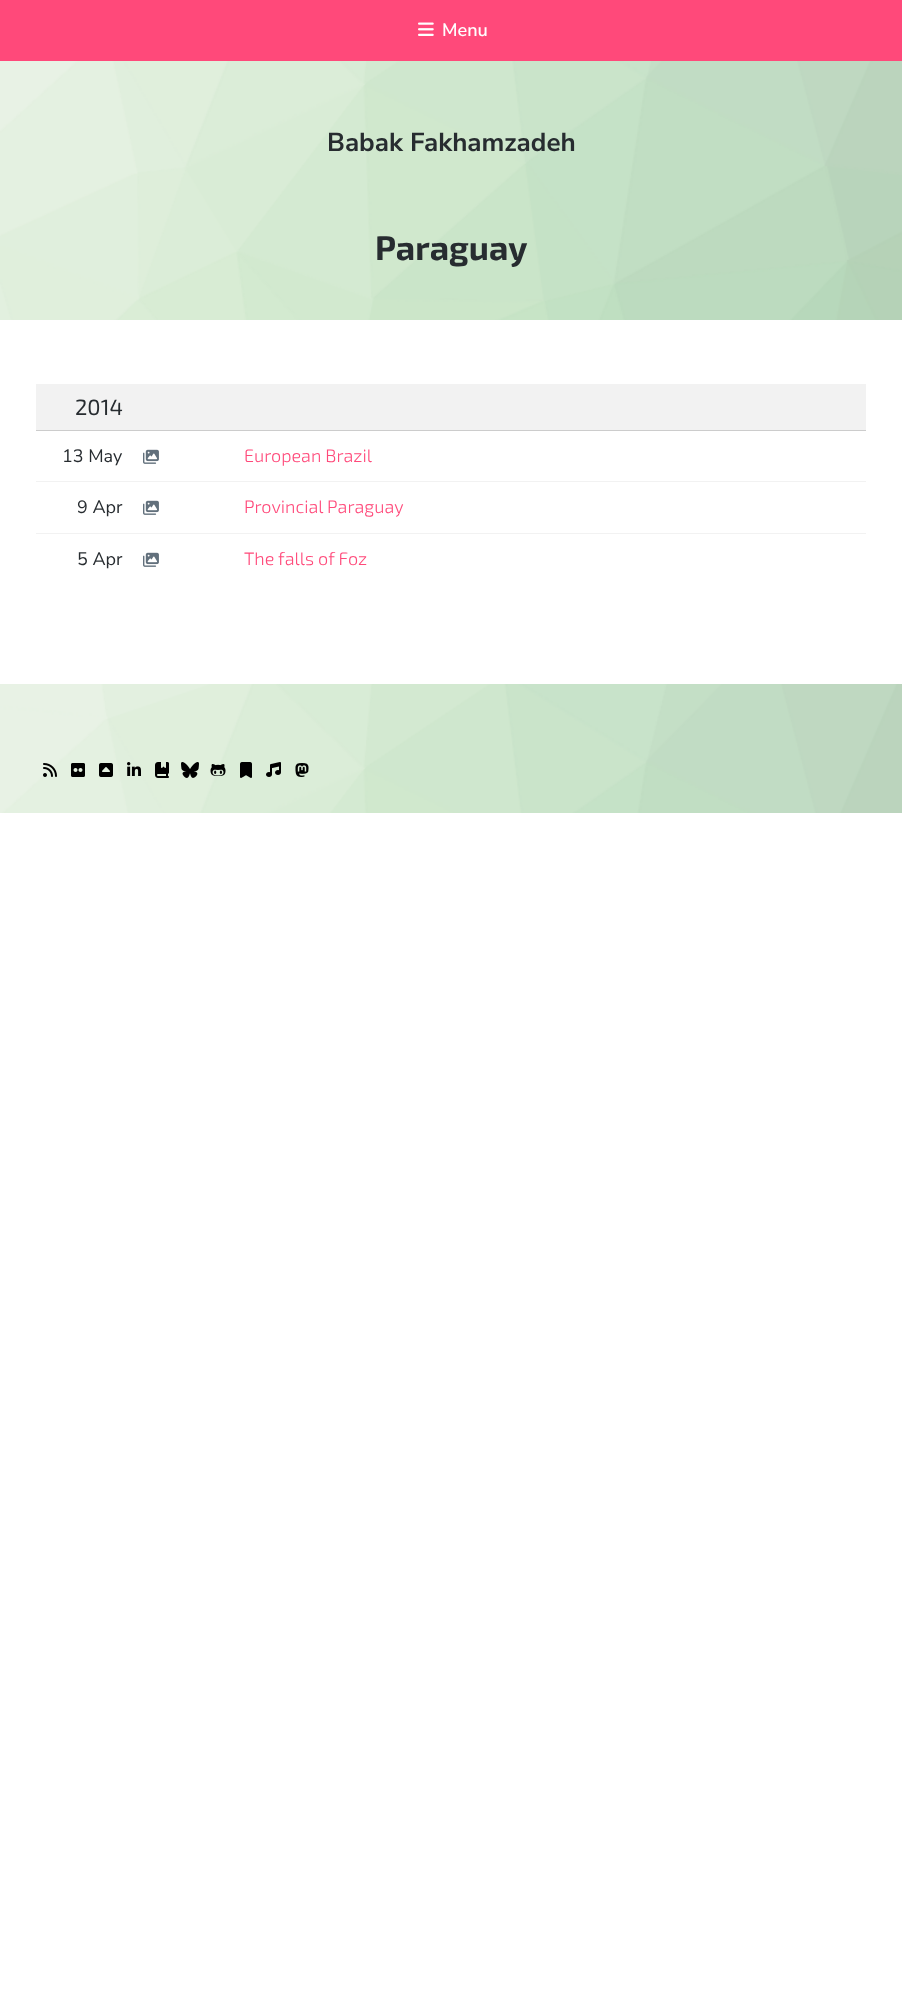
<!DOCTYPE html>
<meta charset="utf-8">
<style>body { margin: 0 } canvas { display: block }</style>
<canvas id="canvas" width="902" height="2001"></canvas>
<script type="module">
  const canvas = document.getElementById("canvas");
  const ctx = canvas.getContext("2d");
  ctx.miterLimit = 4;
  ctx.fontKerning = "normal";
  async function loadImage(src) {
    const img = new Image();
    img.src = src;
    await img.decode();
    return img;
  }

  ctx.fillStyle = "#ffffff";
  ctx.fillRect(0, 0, 902, 2001);
  ctx.fillStyle = "#f2f2f2";
  ctx.fillRect(0, 61, 902, 259);
  ctx.fillStyle = "#ff497a";
  ctx.fillRect(0, 0, 902, 61);
  ctx.drawImage(await loadImage("img1.png"), 418, 22, 16, 14);
  ctx.font = "600 18px Nunito Sans";
  ctx.fillStyle = "#ffffff";
  ctx.fillText("Menu", 442, 36);
  ctx.drawImage(await loadImage("img2.png"), 0, 61, 902, 259);
  ctx.font = "bold 26px Nunito Sans";
  ctx.fillStyle = "#272c30";
  ctx.fillText("Babak Fakhamzadeh", 327, 151);
  ctx.font = "bold 34px 'Exo 2'";
  ctx.fillText("Paraguay", 375, 260);
  ctx.fillStyle = "#f2f2f2";
  ctx.fillRect(36, 384, 830, 46);
  ctx.fillStyle = "#cccccc";
  ctx.fillRect(36, 430, 830, 1);
  ctx.font = "22px 'Exo 2'";
  ctx.fillStyle = "#272c30";
  ctx.fillText("2014", 75, 415);
  ctx.fillStyle = "#f2f2f2";
  ctx.fillRect(36, 481, 830, 1);
  ctx.font = "18px Nunito Sans";
  ctx.fillStyle = "#272c30";
  ctx.fillText("13 May", 62, 462);
  ctx.drawImage(await loadImage("img3.png"), 143, 449, 16, 15);
  ctx.font = "300 18px 'Exo 2'";
  ctx.fillStyle = "#ff497a";
  ctx.fillText("European Brazil", 244, 462);
  ctx.fillStyle = "#f2f2f2";
  ctx.fillRect(36, 533, 830, 1);
  ctx.font = "18px Nunito Sans";
  ctx.fillStyle = "#272c30";
  ctx.fillText("9 Apr", 77, 513);
  ctx.drawImage(await loadImage("img3.png"), 143, 500, 16, 15);
  ctx.font = "300 18px 'Exo 2'";
  ctx.fillStyle = "#ff497a";
  ctx.fillText("Provincial Paraguay", 244, 513);
  ctx.font = "18px Nunito Sans";
  ctx.fillStyle = "#272c30";
  ctx.fillText("5 Apr", 77, 565);
  ctx.drawImage(await loadImage("img3.png"), 143, 552, 16, 15);
  ctx.font = "300 18px 'Exo 2'";
  ctx.fillStyle = "#ff497a";
  ctx.fillText("The falls of Foz", 244, 565);
  ctx.fillStyle = "#f2f2f2";
  ctx.fillRect(0, 684, 902, 129);
  ctx.drawImage(await loadImage("img4.png"), 0, 684, 902, 129);
  ctx.drawImage(await loadImage("img5.png"), 43, 763, 14, 14);
  ctx.drawImage(await loadImage("img6.png"), 71, 763, 14, 14);
  ctx.drawImage(await loadImage("img7.png"), 99, 763, 14, 14);
  ctx.drawImage(await loadImage("img8.png"), 127, 762, 14, 14);
  ctx.drawImage(await loadImage("img9.png"), 155, 762, 14, 16);
  ctx.drawImage(await loadImage("img10.png"), 181, 762, 18, 16);
  ctx.drawImage(await loadImage("img11.png"), 210, 764, 16, 12);
  ctx.drawImage(await loadImage("img12.png"), 240, 762, 12, 16);
  ctx.drawImage(await loadImage("img13.png"), 266, 762, 15, 15);
  ctx.drawImage(await loadImage("img14.png"), 295, 763, 14, 14);
</script>
